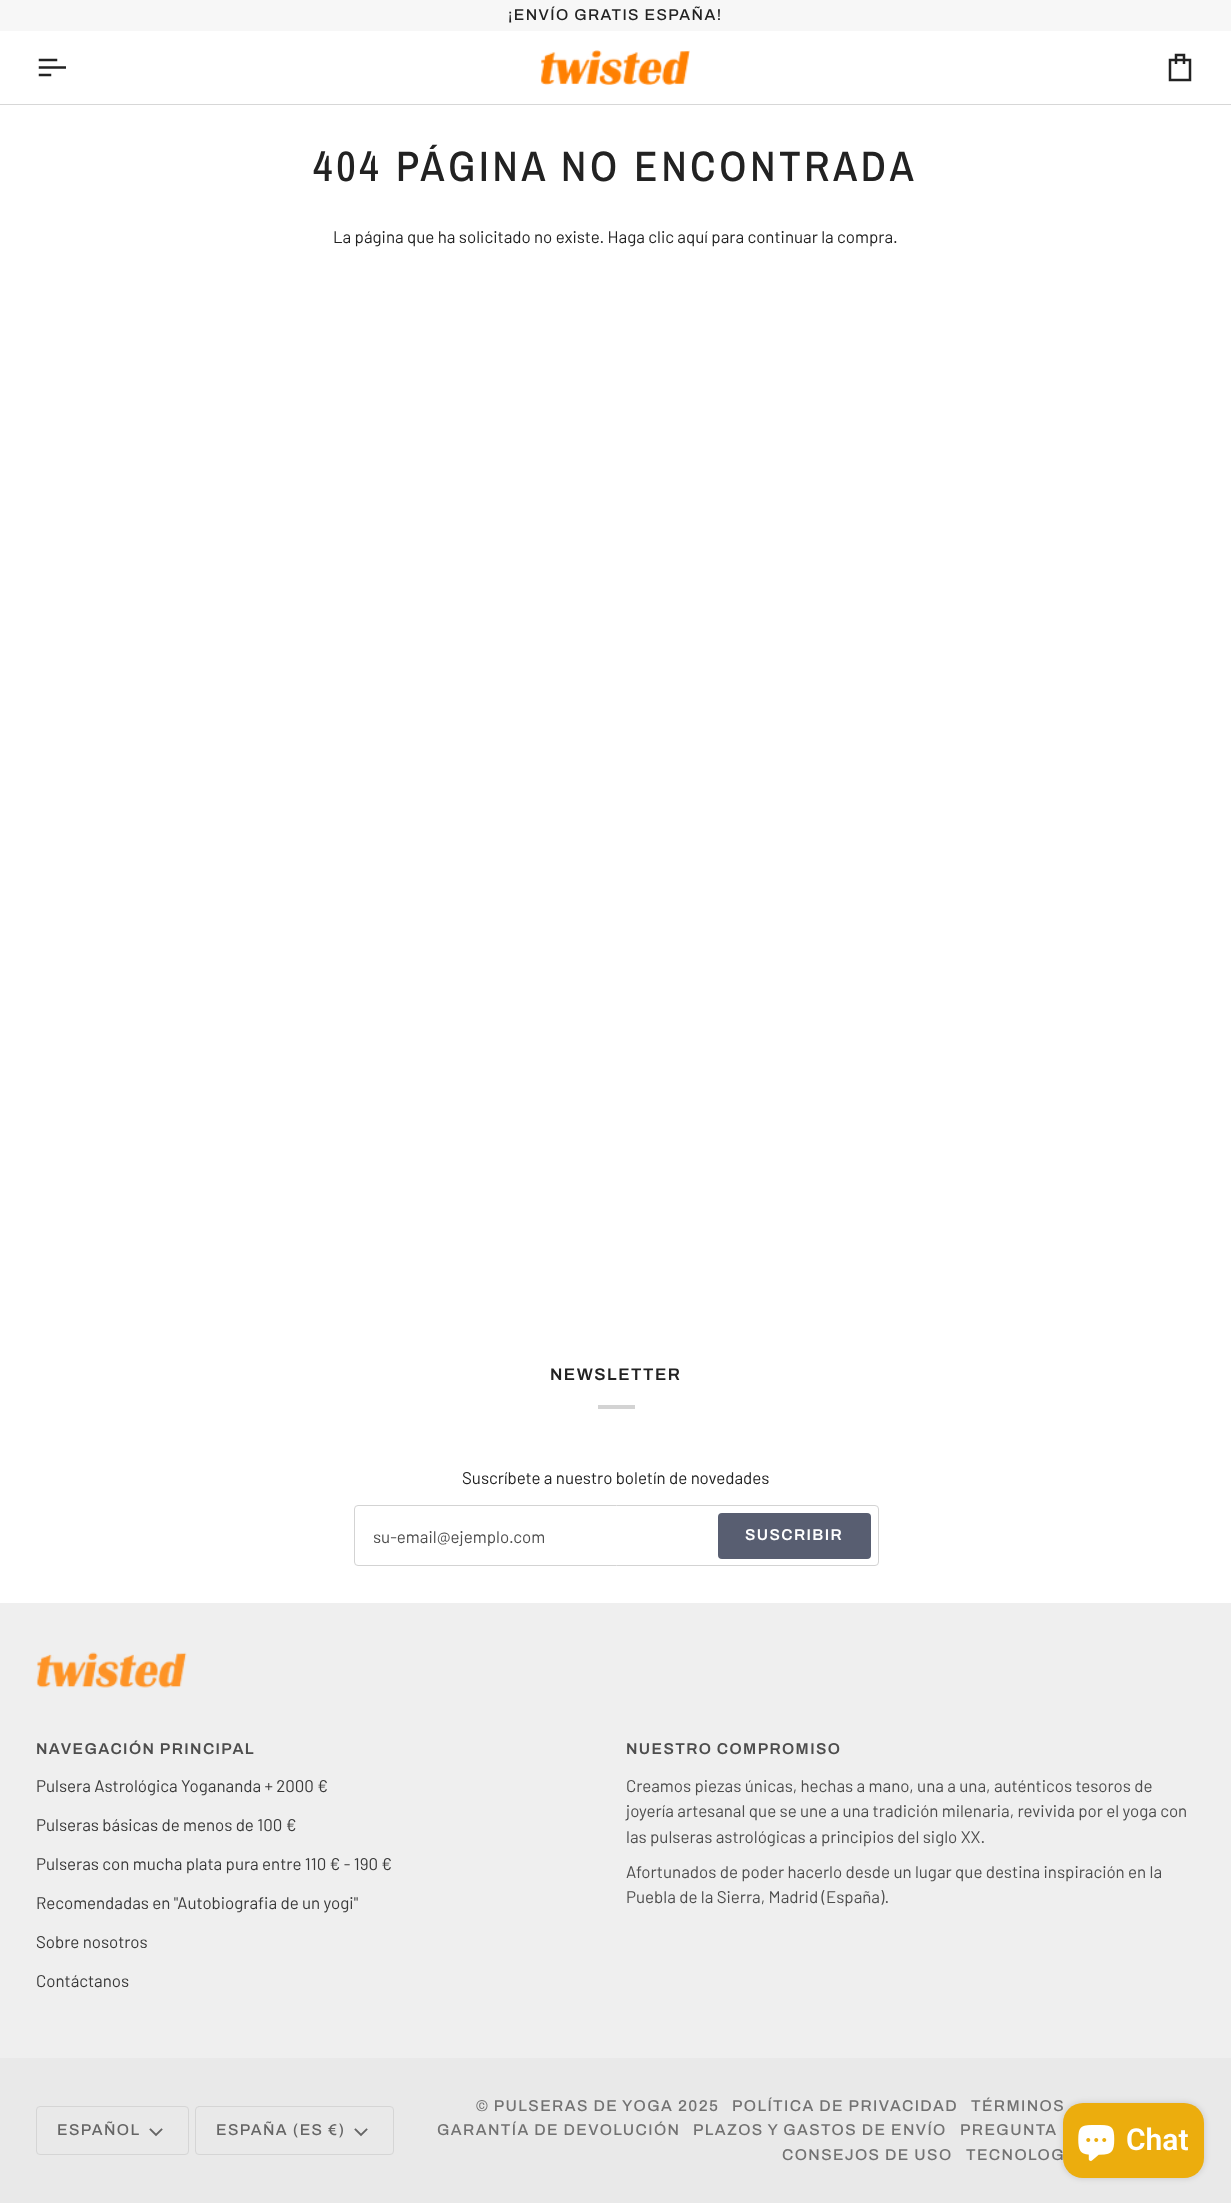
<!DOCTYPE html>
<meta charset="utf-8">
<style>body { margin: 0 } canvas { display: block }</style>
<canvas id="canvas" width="1231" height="2203"></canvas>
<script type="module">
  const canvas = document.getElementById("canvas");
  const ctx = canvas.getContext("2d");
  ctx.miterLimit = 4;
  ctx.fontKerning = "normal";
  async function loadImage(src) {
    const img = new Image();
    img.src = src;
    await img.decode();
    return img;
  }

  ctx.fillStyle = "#ffffff";
  ctx.fillRect(0, 0, 1231, 2203);
  ctx.fillStyle = "#f7f7f7";
  ctx.fillRect(0, 0, 1231, 31);
  ctx.letterSpacing = "1.4px";
  ctx.font = "500 15.6px Archivo";
  ctx.fillStyle = "#222222";
  ctx.fillText("¡ENVÍO GRATIS ESPAÑA!", 508, 20);
  ctx.fillStyle = "#d7d7d7";
  ctx.fillRect(0, 104, 1231, 1);
  ctx.save();
  ctx.beginPath();
  ctx.rect(36, 53, 30, 30);
  ctx.clip();
  ctx.beginPath();
  ctx.moveTo(56, 60);
  ctx.lineTo(40, 60);
  ctx.moveTo(65, 67.5);
  ctx.lineTo(40, 67.5);
  ctx.moveTo(50, 75);
  ctx.lineTo(40, 75);
  ctx.strokeStyle = "#222222";
  ctx.lineWidth = 2.5;
  ctx.lineCap = "square";
  ctx.stroke();
  ctx.restore();
  ctx.drawImage(await loadImage("img1.png"), 540, 50, 150, 35);
  ctx.beginPath();
  ctx.moveTo(1170, 60);
  ctx.lineTo(1190, 60);
  ctx.lineTo(1190, 80);
  ctx.lineTo(1170, 80);
  ctx.closePath();
  ctx.moveTo(1176, 64);
  ctx.lineTo(1176, 55);
  ctx.lineTo(1184, 55);
  ctx.lineTo(1184, 64);
  ctx.strokeStyle = "#222222";
  ctx.lineWidth = 2.5;
  ctx.stroke();
  ctx.letterSpacing = "3.8px";
  ctx.font = "500 42.5px Archivo Narrow";
  ctx.fillStyle = "#222222";
  ctx.fillText("404 PÁGINA NO ENCONTRADA", 313, 181);
  ctx.letterSpacing = "0px";
  ctx.font = "16.9px Barlow";
  ctx.fillText("La página que ha solicitado no existe. Haga clic aquí para continuar la compra.", 333, 243);
  ctx.letterSpacing = "1.5px";
  ctx.font = "600 16.9px Archivo";
  ctx.fillText("NEWSLETTER", 550, 1380);
  ctx.fillStyle = "#d3d3d3";
  ctx.fillRect(598, 1405, 37, 4);
  ctx.letterSpacing = "0px";
  ctx.font = "16.9px Barlow";
  ctx.fillStyle = "#222222";
  ctx.fillText("Suscríbete a nuestro boletín de novedades", 462, 1484);
  ctx.beginPath();
  ctx.roundRect(354.5, 1505.5, 524, 60, 3.5);
  ctx.strokeStyle = "#d3d3d3";
  ctx.lineWidth = 1;
  ctx.stroke();
  ctx.save();
  ctx.beginPath();
  ctx.rect(374, 1525, 331, 21);
  ctx.clip();
  ctx.fillStyle = "#4d4d4d";
  ctx.fillText("su-email@ejemplo.com", 373, 1543);
  ctx.restore();
  ctx.fillStyle = "#585e71";
  ctx.beginPath();
  ctx.roundRect(718, 1513, 153, 46, 4);
  ctx.fill();
  ctx.letterSpacing = "1.4px";
  ctx.font = "600 15.6px Archivo";
  ctx.fillStyle = "#ffffff";
  ctx.fillText("SUSCRIBIR", 745, 1540);
  ctx.fillStyle = "#efefef";
  ctx.fillRect(0, 1603, 1231, 455);
  ctx.drawImage(await loadImage("img2.png"), 36, 1652, 151, 36);
  ctx.fillStyle = "#4d4d4d";
  ctx.fillText("NAVEGACIÓN PRINCIPAL", 36, 1754);
  ctx.letterSpacing = "0px";
  ctx.font = "16.9px Barlow";
  ctx.fillStyle = "#393939";
  ctx.fillText("Pulsera Astrológica Yogananda + 2000 €", 36, 1792);
  ctx.fillText("Pulseras básicas de menos de 100 €", 36, 1831);
  ctx.fillText("Pulseras con mucha plata pura entre 110 € - 190 €", 36, 1870);
  ctx.fillText("Recomendadas en \"Autobiografia de un yogi\"", 36, 1909);
  ctx.fillText("Sobre nosotros", 36, 1948);
  ctx.fillText("Contáctanos", 36, 1987);
  ctx.letterSpacing = "1.4px";
  ctx.font = "600 15.6px Archivo";
  ctx.fillStyle = "#4d4d4d";
  ctx.fillText("NUESTRO COMPROMISO", 626, 1754);
  ctx.letterSpacing = "0px";
  ctx.font = "16.9px Barlow";
  ctx.fillText("Creamos piezas únicas, hechas a mano, una a una, auténticos tesoros de", 626, 1792);
  ctx.fillText("joyería artesanal que se une a una tradición milenaria, revivida por el yoga con", 626, 1817);
  ctx.fillText("las pulseras astrológicas a principios del siglo XX.", 626, 1843);
  ctx.fillText("Afortunados de poder hacerlo desde un lugar que destina inspiración en la", 626, 1878);
  ctx.fillText("Puebla de la Sierra, Madrid (España).", 626, 1903);
  ctx.fillStyle = "#e9e9e9";
  ctx.fillRect(0, 2058, 1231, 145);
  ctx.beginPath();
  ctx.roundRect(36.5, 2106.5, 152, 48, 3.5);
  ctx.strokeStyle = "#d5d5d5";
  ctx.stroke();
  ctx.letterSpacing = "1.4px";
  ctx.font = "500 15.6px Archivo";
  ctx.fillStyle = "#656565";
  ctx.fillText("ESPAÑOL", 57, 2135);
  ctx.beginPath();
  ctx.moveTo(150.5, 2129.5);
  ctx.lineTo(156, 2135);
  ctx.lineTo(161.5, 2129.5);
  ctx.strokeStyle = "#656565";
  ctx.lineWidth = 1.8;
  ctx.lineCap = "square";
  ctx.stroke();
  ctx.beginPath();
  ctx.roundRect(195.5, 2106.5, 198, 48, 3.5);
  ctx.strokeStyle = "#d5d5d5";
  ctx.lineWidth = 1;
  ctx.stroke();
  ctx.fillText("ESPAÑA (ES €)", 216, 2135);
  ctx.beginPath();
  ctx.moveTo(355.5, 2129.5);
  ctx.lineTo(361, 2135);
  ctx.lineTo(366.5, 2129.5);
  ctx.strokeStyle = "#656565";
  ctx.lineWidth = 1.8;
  ctx.stroke();
  ctx.fillStyle = "#727272";
  ctx.fillText("© PULSERAS DE YOGA", 476, 2111);
  ctx.fillText("2025", 678, 2111);
  ctx.fillText("POLÍTICA DE PRIVACIDAD", 732, 2111);
  ctx.fillText("TÉRMINOS", 971, 2111);
  ctx.fillText("GARANTÍA DE DEVOLUCIÓN", 437, 2135);
  ctx.fillText("PLAZOS Y GASTOS DE ENVÍO", 693, 2135);
  ctx.fillText("PREGUNTA", 960, 2135);
  ctx.fillText("CONSEJOS DE USO", 782, 2160);
  ctx.fillText("TECNOLOG", 966, 2160);
  ctx.fillStyle = "rgba(0, 0, 0, 0.15)";
  ctx.filter = "blur(3px)";
  ctx.beginPath();
  ctx.roundRect(1063, 2103, 141, 75, 20);
  ctx.fill();
  ctx.filter = "none";
  ctx.fillStyle = "#ecad0d";
  ctx.beginPath();
  ctx.roundRect(1063, 2103, 141, 75, 20);
  ctx.fill();
  ctx.drawImage(await loadImage("img3.png"), 1078, 2125, 37, 36);
  ctx.letterSpacing = "0px";
  ctx.font = "600 30px Roboto";
  ctx.fillStyle = "#ffffff";
  ctx.fillText("Chat", 1126, 2150);
</script>
